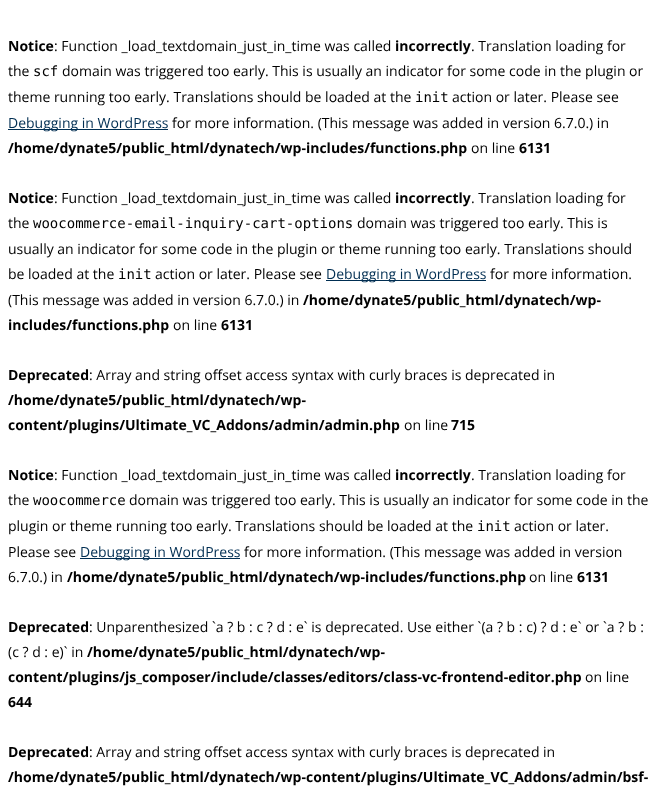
<!DOCTYPE html>
<meta charset="utf-8">
<style>body { margin: 0 } canvas { display: block }</style>
<canvas id="canvas" width="657" height="790"></canvas>
<script type="module">
  const canvas = document.getElementById("canvas");
  const ctx = canvas.getContext("2d");
  ctx.miterLimit = 4;
  ctx.fontKerning = "normal";

  ctx.fillStyle = "#ffffff";
  ctx.fillRect(0, 0, 657, 790);
  ctx.font = "bold 14px Open Sans";
  ctx.fillStyle = "#000000";
  ctx.fillText("Notice", 8, 51);
  ctx.font = "14px Open Sans";
  ctx.fillText(": Function _load_textdomain_just_in_time was called", 54, 51);
  ctx.font = "bold 14px Open Sans";
  ctx.fillText("incorrectly", 395, 51);
  ctx.font = "14px Open Sans";
  ctx.fillText(". Translation loading for", 471, 51);
  ctx.fillText("the", 8, 76);
  ctx.font = "14px DejaVu Sans Mono";
  ctx.fillText("scf", 33, 76);
  ctx.font = "14px Open Sans";
  ctx.fillText("domain was triggered too early. This is usually an indicator for some code in the plugin or", 62, 76);
  ctx.fillText("theme running too early. Translations should be loaded at the", 8, 102);
  ctx.font = "14px DejaVu Sans Mono";
  ctx.fillText("init", 415, 102);
  ctx.font = "14px Open Sans";
  ctx.fillText("action or later. Please see", 452, 102);
  ctx.fillStyle = "#002e52";
  ctx.fillRect(8, 129, 160, 1);
  ctx.fillText("Debugging in WordPress", 8, 128);
  ctx.fillStyle = "#000000";
  ctx.fillText("for more information. (This message was added in version 6.7.0.) in", 172, 128);
  ctx.font = "bold 14px Open Sans";
  ctx.fillText("/home/dynate5/public_html/dynatech/wp-includes/functions.php", 8, 153);
  ctx.font = "14px Open Sans";
  ctx.fillText("on line", 471, 153);
  ctx.font = "bold 14px Open Sans";
  ctx.fillText("6131", 519, 153);
  ctx.fillText("Notice", 8, 203);
  ctx.font = "14px Open Sans";
  ctx.fillText(": Function _load_textdomain_just_in_time was called", 54, 203);
  ctx.font = "bold 14px Open Sans";
  ctx.fillText("incorrectly", 395, 203);
  ctx.font = "14px Open Sans";
  ctx.fillText(". Translation loading for", 471, 203);
  ctx.fillText("the", 8, 228);
  ctx.font = "14px DejaVu Sans Mono";
  ctx.fillText("woocommerce-email-inquiry-cart-options", 33, 228);
  ctx.font = "14px Open Sans";
  ctx.fillText("domain was triggered too early. This is", 357, 228);
  ctx.fillText("usually an indicator for some code in the plugin or theme running too early. Translations should", 8, 254);
  ctx.fillText("be loaded at the", 8, 279);
  ctx.font = "14px DejaVu Sans Mono";
  ctx.fillText("init", 118, 279);
  ctx.font = "14px Open Sans";
  ctx.fillText("action or later. Please see", 155, 279);
  ctx.fillStyle = "#002e52";
  ctx.fillRect(326, 280, 160, 1);
  ctx.fillText("Debugging in WordPress", 326, 279);
  ctx.fillStyle = "#000000";
  ctx.fillText("for more information.", 490, 279);
  ctx.fillText("(This message was added in version 6.7.0.) in", 8, 305);
  ctx.font = "bold 14px Open Sans";
  ctx.fillText("/home/dynate5/public_html/dynatech/wp-", 303, 305);
  ctx.fillText("includes/functions.php", 8, 330);
  ctx.font = "14px Open Sans";
  ctx.fillText("on line", 173, 330);
  ctx.font = "bold 14px Open Sans";
  ctx.fillText("6131", 221, 330);
  ctx.fillText("Deprecated", 8, 380);
  ctx.font = "14px Open Sans";
  ctx.fillText(": Array and string offset access syntax with curly braces is deprecated in", 89, 380);
  ctx.font = "bold 14px Open Sans";
  ctx.fillText("/home/dynate5/public_html/dynatech/wp-", 8, 405);
  ctx.fillText("content/plugins/Ultimate_VC_Addons/admin/admin.php", 8, 430);
  ctx.font = "14px Open Sans";
  ctx.fillText("on line", 404, 430);
  ctx.font = "bold 14px Open Sans";
  ctx.fillText("715", 451, 430);
  ctx.fillText("Notice", 8, 480);
  ctx.font = "14px Open Sans";
  ctx.fillText(": Function _load_textdomain_just_in_time was called", 54, 480);
  ctx.font = "bold 14px Open Sans";
  ctx.fillText("incorrectly", 395, 480);
  ctx.font = "14px Open Sans";
  ctx.fillText(". Translation loading for", 471, 480);
  ctx.fillText("the", 8, 505);
  ctx.font = "14px DejaVu Sans Mono";
  ctx.fillText("woocommerce", 33, 505);
  ctx.font = "14px Open Sans";
  ctx.fillText("domain was triggered too early. This is usually an indicator for some code in the", 129, 505);
  ctx.fillText("plugin or theme running too early. Translations should be loaded at the", 8, 531);
  ctx.font = "14px DejaVu Sans Mono";
  ctx.fillText("init", 477, 531);
  ctx.font = "14px Open Sans";
  ctx.fillText("action or later.", 514, 531);
  ctx.fillText("Please see", 8, 557);
  ctx.fillStyle = "#002e52";
  ctx.fillRect(80, 558, 160, 1);
  ctx.fillText("Debugging in WordPress", 80, 557);
  ctx.fillStyle = "#000000";
  ctx.fillText("for more information. (This message was added in version", 244, 557);
  ctx.fillText("6.7.0.) in", 8, 582);
  ctx.font = "bold 14px Open Sans";
  ctx.fillText("/home/dynate5/public_html/dynatech/wp-includes/functions.php", 67, 582);
  ctx.font = "14px Open Sans";
  ctx.fillText("on line", 529, 582);
  ctx.font = "bold 14px Open Sans";
  ctx.fillText("6131", 577, 582);
  ctx.fillText("Deprecated", 8, 632);
  ctx.font = "14px Open Sans";
  ctx.fillText(": Unparenthesized `a ? b : c ? d : e` is deprecated. Use either `(a ? b : c) ? d : e` or `a ? b :", 89, 632);
  ctx.fillText("(c ? d : e)` in", 8, 657);
  ctx.font = "bold 14px Open Sans";
  ctx.fillText("/home/dynate5/public_html/dynatech/wp-", 87, 657);
  ctx.fillText("content/plugins/js_composer/include/classes/editors/class-vc-frontend-editor.php", 8, 682);
  ctx.font = "14px Open Sans";
  ctx.fillText("on line", 585, 682);
  ctx.font = "bold 14px Open Sans";
  ctx.fillText("644", 8, 707);
  ctx.fillText("Deprecated", 8, 757);
  ctx.font = "14px Open Sans";
  ctx.fillText(": Array and string offset access syntax with curly braces is deprecated in", 89, 757);
  ctx.font = "bold 14px Open Sans";
  ctx.fillText("/home/dynate5/public_html/dynatech/wp-content/plugins/Ultimate_VC_Addons/admin/bsf-", 8, 782);
</script>
